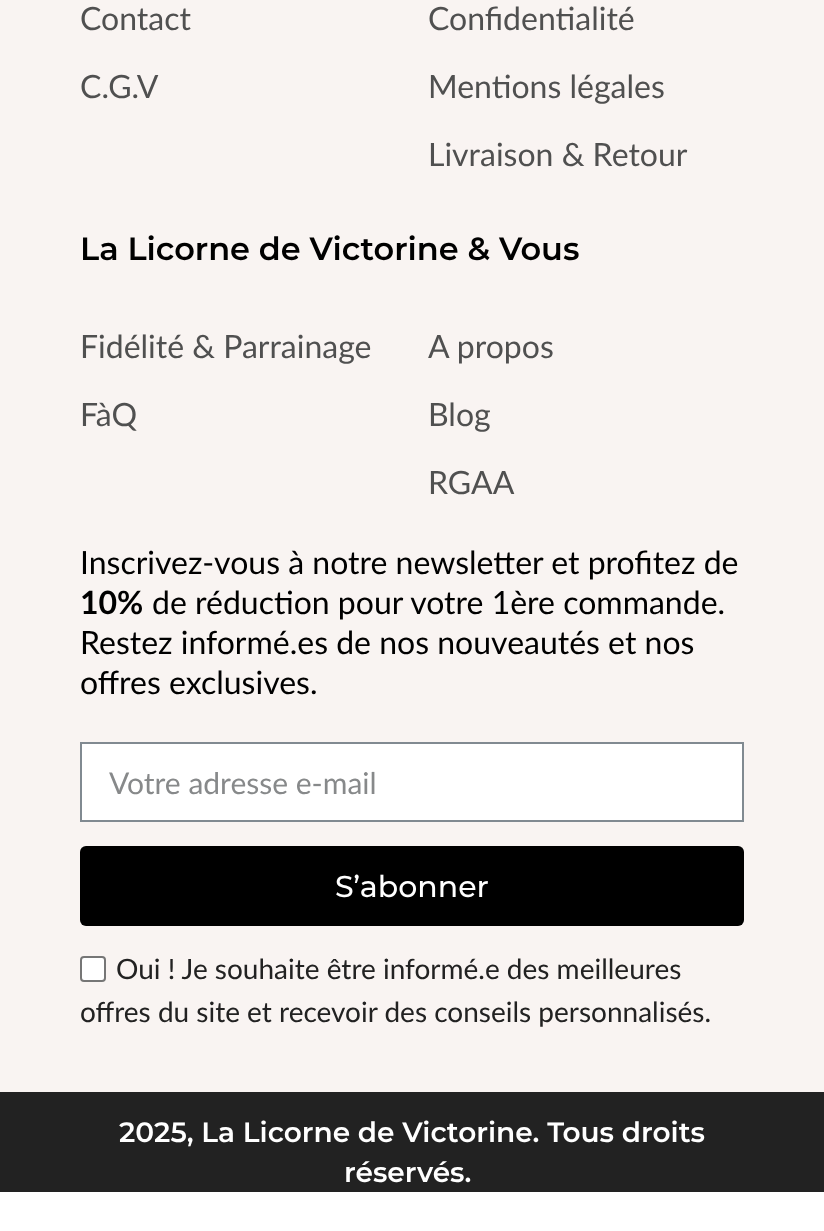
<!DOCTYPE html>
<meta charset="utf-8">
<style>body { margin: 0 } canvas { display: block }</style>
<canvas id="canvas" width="824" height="1231"></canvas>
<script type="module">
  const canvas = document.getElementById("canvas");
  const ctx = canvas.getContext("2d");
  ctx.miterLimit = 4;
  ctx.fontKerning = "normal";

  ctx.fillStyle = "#ffffff";
  ctx.fillRect(0, 0, 824, 1231);
  ctx.fillStyle = "#f9f4f2";
  ctx.fillRect(0, 0, 824, 1092);
  ctx.font = "32px Lato";
  ctx.fillStyle = "#505050";
  ctx.fillText("Contact", 80, 30);
  ctx.fillText("Confidentialité", 428, 30);
  ctx.fillText("C.G.V", 80, 98);
  ctx.fillText("Mentions légales", 428, 98);
  ctx.fillText("Livraison & Retour", 428, 166);
  ctx.font = "600 32px Montserrat";
  ctx.fillStyle = "#000000";
  ctx.fillText("La Licorne de Victorine & Vous", 80, 260);
  ctx.font = "32px Lato";
  ctx.fillStyle = "#505050";
  ctx.fillText("Fidélité & Parrainage", 80, 358);
  ctx.fillText("A propos", 428, 358);
  ctx.fillText("FàQ", 80, 426);
  ctx.fillText("Blog", 428, 426);
  ctx.fillText("RGAA", 428, 494);
  ctx.fillStyle = "#000000";
  ctx.fillText("Inscrivez-vous à notre newsletter et profitez de", 80, 574);
  ctx.font = "bold 32px Lato";
  ctx.fillText("10%", 80, 614);
  ctx.font = "32px Lato";
  ctx.fillText("de réduction pour votre 1ère commande.", 152, 614);
  ctx.fillText("Restez informé.es de nos nouveautés et nos", 80, 654);
  ctx.fillText("offres exclusives.", 80, 694);
  ctx.fillStyle = "#ffffff";
  ctx.beginPath();
  ctx.rect(81, 743, 662, 78);
  ctx.fill();
  ctx.strokeStyle = "#818a91";
  ctx.lineWidth = 2;
  ctx.stroke();
  ctx.font = "30px Lato";
  ctx.fillStyle = "#87898a";
  ctx.fillText("Votre adresse e-mail", 109, 794);
  ctx.fillStyle = "#000000";
  ctx.beginPath();
  ctx.roundRect(80, 846, 664, 80, 6);
  ctx.fill();
  ctx.font = "500 30px Montserrat";
  ctx.fillStyle = "#ffffff";
  ctx.fillText("S’abonner", 335, 897);
  ctx.beginPath();
  ctx.roundRect(81, 957, 24, 24, 3);
  ctx.fill();
  ctx.strokeStyle = "#767676";
  ctx.stroke();
  ctx.font = "28px Lato";
  ctx.fillStyle = "#222222";
  ctx.fillText("Oui ! Je souhaite être informé.e des meilleures", 116, 979);
  ctx.fillText("offres du site et recevoir des conseils personnalisés.", 80, 1022);
  ctx.fillRect(0, 1092, 824, 100);
  ctx.font = "600 28px Montserrat";
  ctx.fillStyle = "#ffffff";
  ctx.fillText("2025, La Licorne de Victorine. Tous droits", 119, 1142);
  ctx.fillText("réservés.", 344, 1182);
</script>
